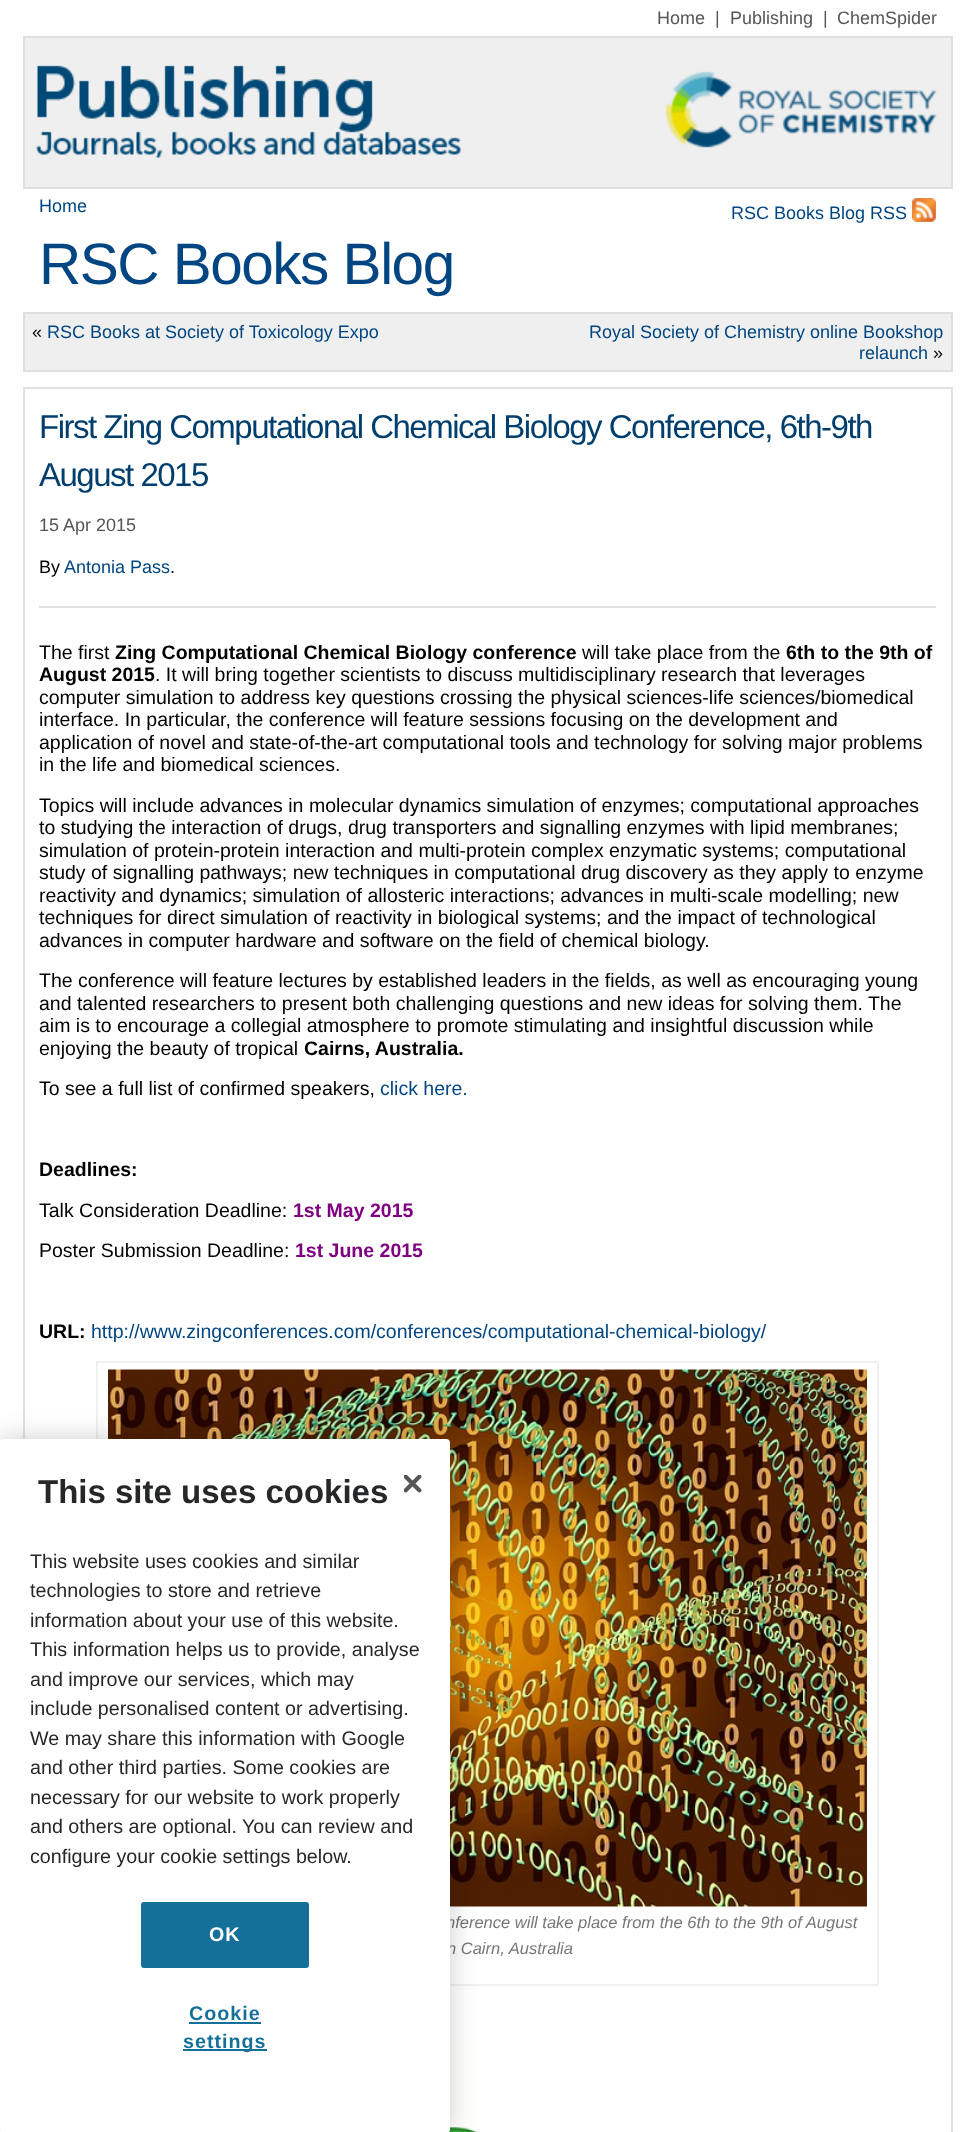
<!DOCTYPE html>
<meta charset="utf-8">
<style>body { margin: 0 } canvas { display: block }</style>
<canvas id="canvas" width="974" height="2132"></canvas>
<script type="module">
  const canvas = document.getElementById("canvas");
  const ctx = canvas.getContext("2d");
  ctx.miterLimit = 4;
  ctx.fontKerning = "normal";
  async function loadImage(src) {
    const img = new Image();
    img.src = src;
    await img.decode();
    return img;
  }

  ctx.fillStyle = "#ffffff";
  ctx.fillRect(0, 0, 974, 2132);
  ctx.font = "18px Liberation Sans";
  ctx.fillStyle = "#565656";
  ctx.fillText("Home", 657, 24);
  ctx.fillText("|", 715, 24);
  ctx.fillText("Publishing", 730, 24);
  ctx.fillText("|", 823, 24);
  ctx.fillText("ChemSpider", 837, 24);
  ctx.fillStyle = "#efefef";
  ctx.beginPath();
  ctx.rect(24, 37, 928, 151);
  ctx.fill();
  ctx.strokeStyle = "#dfdfdf";
  ctx.lineWidth = 2;
  ctx.stroke();
  ctx.drawImage(await loadImage("img1.png"), 35, 65, 426, 93);
  ctx.drawImage(await loadImage("img2.png"), 666, 71, 271, 77);
  ctx.fillStyle = "#014682";
  ctx.fillText("Home", 39, 212);
  ctx.fillText("RSC Books Blog RSS", 731, 219);
  ctx.drawImage(await loadImage("img3.png"), 912, 198, 24, 24);
  ctx.letterSpacing = "-1.5px";
  ctx.font = "58.5px Liberation Sans";
  ctx.fillText("RSC Books Blog", 39, 284);
  ctx.fillStyle = "#efefef";
  ctx.beginPath();
  ctx.rect(24, 313, 928, 58);
  ctx.fill();
  ctx.stroke();
  ctx.letterSpacing = "0px";
  ctx.font = "18px Liberation Sans";
  ctx.fillStyle = "#000000";
  ctx.fillText("«", 32, 338);
  ctx.fillStyle = "#014682";
  ctx.fillText("RSC Books at Society of Toxicology Expo", 47, 338);
  ctx.fillText("Royal Society of Chemistry online Bookshop", 589, 338);
  ctx.fillText("relaunch", 859, 359);
  ctx.fillStyle = "#000000";
  ctx.fillText("»", 933, 359);
  ctx.strokeStyle = "#e1e1e1";
  ctx.strokeRect(24, 388, 928, 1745);
  ctx.letterSpacing = "-1.5px";
  ctx.font = "33px Liberation Sans";
  ctx.fillStyle = "#003e6e";
  ctx.fillText("First Zing Computational Chemical Biology Conference, 6th-9th", 39, 438);
  ctx.fillText("August 2015", 39, 486);
  ctx.letterSpacing = "0px";
  ctx.font = "18px Liberation Sans";
  ctx.fillStyle = "#565656";
  ctx.fillText("15 Apr 2015", 39, 531);
  ctx.fillStyle = "#000000";
  ctx.fillText("By", 39, 573);
  ctx.fillStyle = "#014682";
  ctx.fillText("Antonia Pass", 64, 573);
  ctx.fillStyle = "#000000";
  ctx.fillText(".", 170, 573);
  ctx.fillStyle = "#e1e1e1";
  ctx.fillRect(39, 606, 897, 2);
  ctx.font = "19.5px Liberation Sans";
  ctx.fillStyle = "#000000";
  ctx.fillText("The first", 39, 659);
  ctx.font = "bold 19.5px Liberation Sans";
  ctx.fillText("Zing Computational Chemical Biology conference", 115, 659);
  ctx.font = "19.5px Liberation Sans";
  ctx.fillText("will take place from the", 582, 659);
  ctx.font = "bold 19.5px Liberation Sans";
  ctx.fillText("6th to the 9th of", 786, 659);
  ctx.fillText("August 2015", 39, 681);
  ctx.font = "19.5px Liberation Sans";
  ctx.fillText(". It will bring together scientists to discuss multidisciplinary research that leverages", 155, 681);
  ctx.fillText("computer simulation to address key questions crossing the physical sciences-life sciences/biomedical", 39, 704);
  ctx.fillText("interface. In particular, the conference will feature sessions focusing on the development and", 39, 726);
  ctx.fillText("application of novel and state-of-the-art computational tools and technology for solving major problems", 39, 749);
  ctx.fillText("in the life and biomedical sciences.", 39, 771);
  ctx.fillText("Topics will include advances in molecular dynamics simulation of enzymes; computational approaches", 39, 812);
  ctx.fillText("to studying the interaction of drugs, drug transporters and signalling enzymes with lipid membranes;", 39, 834);
  ctx.fillText("simulation of protein-protein interaction and multi-protein complex enzymatic systems; computational", 39, 857);
  ctx.fillText("study of signalling pathways; new techniques in computational drug discovery as they apply to enzyme", 39, 879);
  ctx.fillText("reactivity and dynamics; simulation of allosteric interactions; advances in multi-scale modelling; new", 39, 902);
  ctx.fillText("techniques for direct simulation of reactivity in biological systems; and the impact of technological", 39, 924);
  ctx.fillText("advances in computer hardware and software on the field of chemical biology.", 39, 947);
  ctx.fillText("The conference will feature lectures by established leaders in the fields, as well as encouraging young", 39, 987);
  ctx.fillText("and talented researchers to present both challenging questions and new ideas for solving them. The", 39, 1010);
  ctx.fillText("aim is to encourage a collegial atmosphere to promote stimulating and insightful discussion while", 39, 1032);
  ctx.fillText("enjoying the beauty of tropical", 39, 1055);
  ctx.font = "bold 19.5px Liberation Sans";
  ctx.fillText("Cairns, Australia.", 304, 1055);
  ctx.font = "19.5px Liberation Sans";
  ctx.fillText("To see a full list of confirmed speakers,", 39, 1095);
  ctx.fillStyle = "#014682";
  ctx.fillText("click here.", 380, 1095);
  ctx.font = "bold 19.5px Liberation Sans";
  ctx.fillStyle = "#000000";
  ctx.fillText("Deadlines:", 39, 1176);
  ctx.font = "19.5px Liberation Sans";
  ctx.fillText("Talk Consideration Deadline:", 39, 1217);
  ctx.font = "bold 19.5px Liberation Sans";
  ctx.fillStyle = "#800080";
  ctx.fillText("1st May 2015", 293, 1217);
  ctx.font = "19.5px Liberation Sans";
  ctx.fillStyle = "#000000";
  ctx.fillText("Poster Submission Deadline:", 39, 1257);
  ctx.font = "bold 19.5px Liberation Sans";
  ctx.fillStyle = "#800080";
  ctx.fillText("1st June 2015", 295, 1257);
  ctx.fillStyle = "#000000";
  ctx.fillText("URL:", 39, 1338);
  ctx.font = "19.5px Liberation Sans";
  ctx.fillStyle = "#014682";
  ctx.fillText("http://www.zingconferences.com/conferences/computational-chemical-biology/", 91, 1338);
  ctx.strokeStyle = "#f0f0f0";
  ctx.strokeRect(97, 1362, 781, 623);
  ctx.drawImage(await loadImage("img4.png"), 108, 1369, 759, 538);
  ctx.font = "italic 16.5px Liberation Sans";
  ctx.fillStyle = "#777777";
  ctx.fillText("nference will take place from the 6th to the 9th of August", 446, 1928);
  ctx.fillText("n Cairn, Australia", 447, 1954);
  ctx.drawImage(await loadImage("img5.png"), 448, 2041, 30, 91);
  ctx.fillStyle = "rgba(0, 0, 0, 0.2)";
  ctx.filter = "blur(13.5px)";
  ctx.beginPath();
  ctx.roundRect(0, 1439, 450, 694, 4);
  ctx.fill();
  ctx.filter = "none";
  ctx.fillStyle = "#ffffff";
  ctx.beginPath();
  ctx.roundRect(0, 1439, 450, 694, 4);
  ctx.fill();
  ctx.drawImage(await loadImage("img6.png"), 404, 1475, 18, 18);
  ctx.font = "bold 33px Liberation Sans";
  ctx.fillStyle = "#252729";
  ctx.fillText("This site uses cookies", 38, 1503);
  ctx.font = "19.7px Liberation Sans";
  ctx.fillText("This website uses cookies and similar", 30, 1568);
  ctx.fillText("technologies to store and retrieve", 30, 1597);
  ctx.fillText("information about your use of this website.", 30, 1627);
  ctx.fillText("This information helps us to provide, analyse", 30, 1656);
  ctx.fillText("and improve our services, which may", 30, 1686);
  ctx.fillText("include personalised content or advertising.", 30, 1715);
  ctx.fillText("We may share this information with Google", 30, 1745);
  ctx.fillText("and other third parties. Some cookies are", 30, 1774);
  ctx.fillText("necessary for our website to work properly", 30, 1804);
  ctx.fillText("and others are optional. You can review and", 30, 1833);
  ctx.fillText("configure your cookie settings below.", 30, 1863);
  ctx.fillStyle = "#147098";
  ctx.beginPath();
  ctx.roundRect(142, 1903, 166, 64, 2);
  ctx.fill();
  ctx.strokeStyle = "#147098";
  ctx.stroke();
  ctx.letterSpacing = "1px";
  ctx.font = "bold 19.7px Liberation Sans";
  ctx.fillStyle = "#ffffff";
  ctx.fillText("OK", 209, 1941);
  ctx.fillStyle = "#147098";
  ctx.fillText("Cookie", 189, 2020);
  ctx.fillRect(189, 2022, 72, 2);
  ctx.fillRect(183, 2049, 84, 2);
  ctx.fillText("settings", 183, 2048);
</script>
